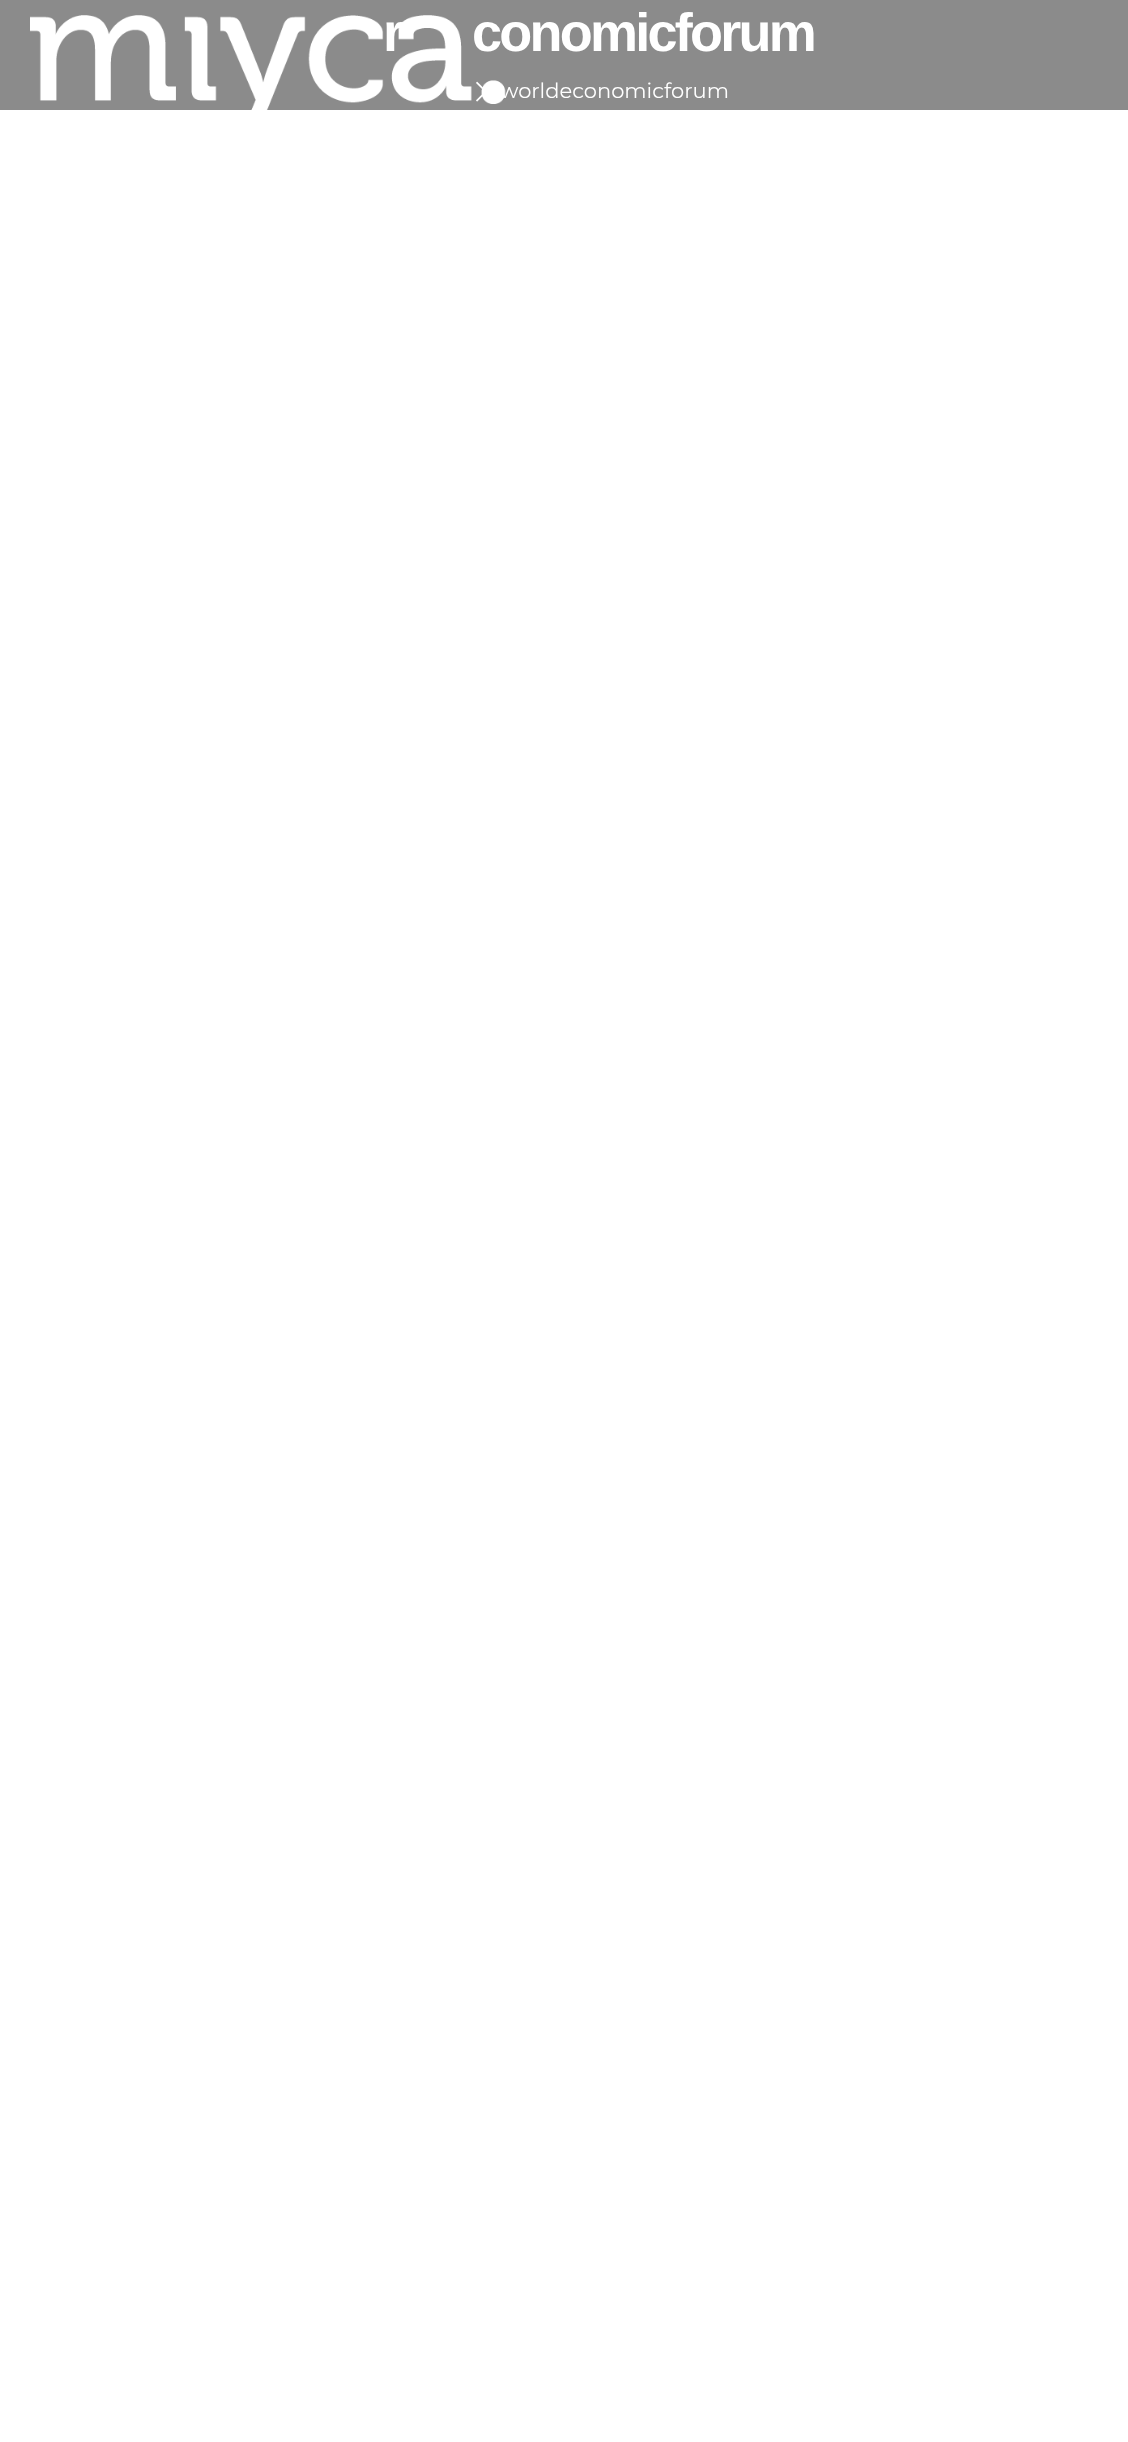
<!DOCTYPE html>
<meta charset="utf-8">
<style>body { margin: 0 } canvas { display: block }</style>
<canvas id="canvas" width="1128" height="2442"></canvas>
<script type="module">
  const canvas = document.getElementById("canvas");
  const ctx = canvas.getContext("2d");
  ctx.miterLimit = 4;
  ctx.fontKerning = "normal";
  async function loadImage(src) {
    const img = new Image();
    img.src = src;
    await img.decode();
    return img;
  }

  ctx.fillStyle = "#ffffff";
  ctx.fillRect(0, 0, 1128, 2442);
  ctx.fillStyle = "#8b8b8b";
  ctx.fillRect(0, 0, 1128, 110);
  ctx.letterSpacing = "-2.75px";
  ctx.font = "bold 54px Liberation Sans";
  ctx.fillStyle = "#ffffff";
  ctx.fillText("r", 383, 51);
  ctx.fillText("conomicforum", 472, 51);
  ctx.drawImage(await loadImage("img2.png"), 476, 81, 7, 21);
  ctx.letterSpacing = "0px";
  ctx.font = "21px Montserrat";
  ctx.fillText("worldeconomicforum", 500, 98);
  ctx.drawImage(await loadImage("img1.png"), 30, 15, 476, 95);
</script>
